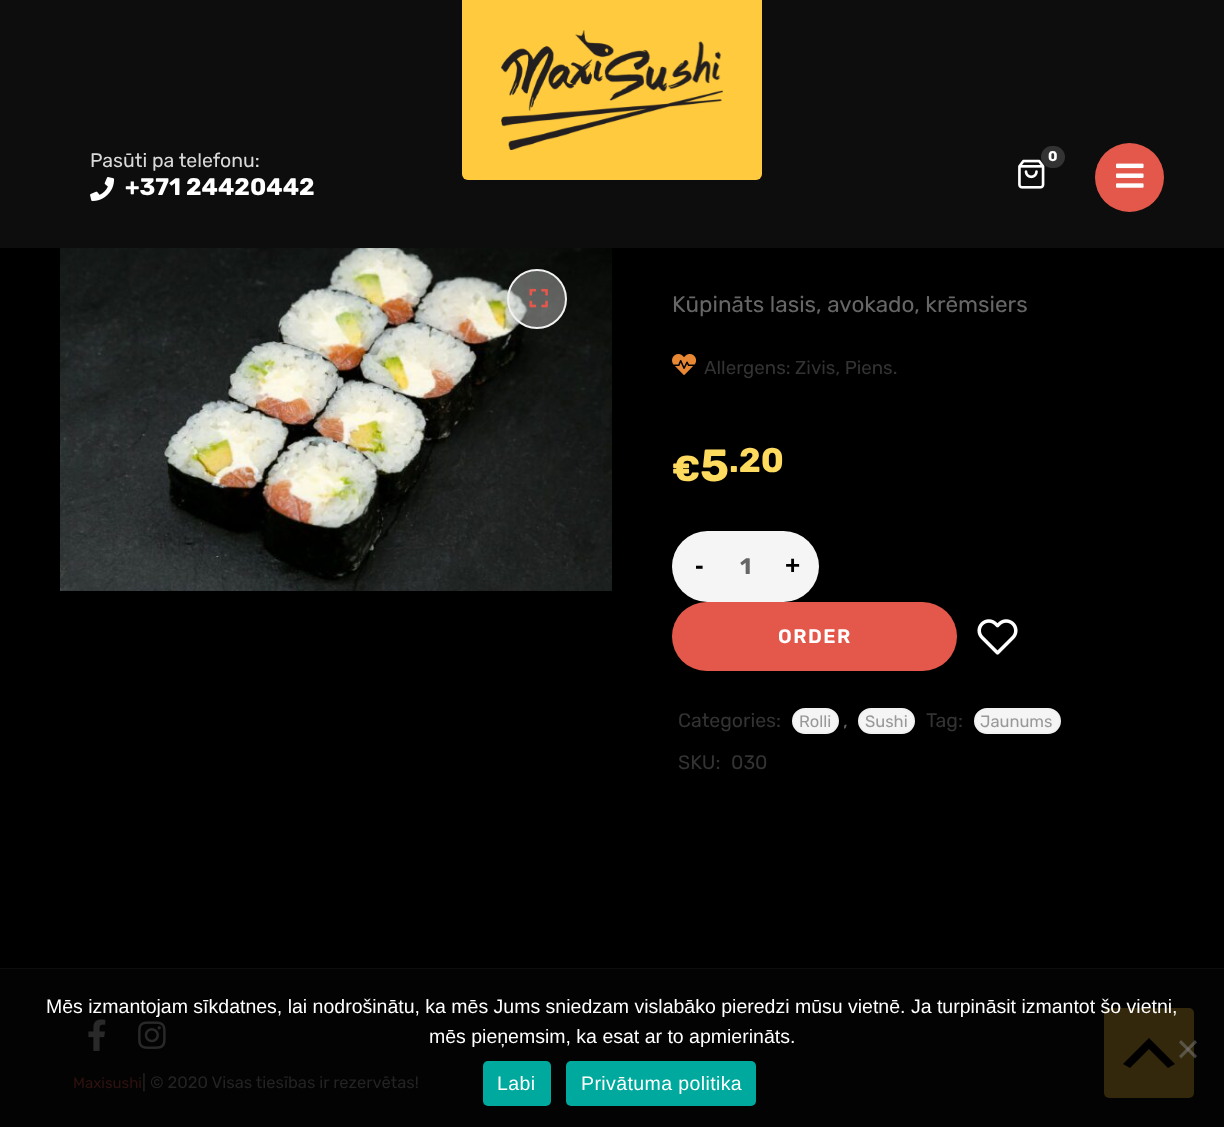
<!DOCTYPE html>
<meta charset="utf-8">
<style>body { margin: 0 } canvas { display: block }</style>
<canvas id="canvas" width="1224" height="1127"></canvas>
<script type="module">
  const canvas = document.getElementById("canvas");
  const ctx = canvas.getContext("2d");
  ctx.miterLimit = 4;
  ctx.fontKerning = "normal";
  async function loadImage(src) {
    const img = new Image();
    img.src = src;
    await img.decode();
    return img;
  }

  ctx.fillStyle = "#0d0d0d";
  ctx.fillRect(0, 0, 1224, 1127);
  ctx.fillStyle = "#ffca3e";
  ctx.beginPath();
  ctx.roundRect(462, 0, 300, 180, [0, 0, 6, 6]);
  ctx.fill();
  ctx.drawImage(await loadImage("img1.png"), 501, 30, 222, 120);
  ctx.font = "19.5px Rubik";
  ctx.fillStyle = "#d9d9d9";
  ctx.fillText("Pasūti pa telefonu:", 90, 167);
  ctx.drawImage(await loadImage("img2.png"), 90, 177, 25, 24);
  ctx.font = "bold 24px Rubik";
  ctx.fillStyle = "#ffffff";
  ctx.fillText("+371 24420442", 125, 195);
  ctx.drawImage(await loadImage("img3.png"), 1018, 159, 27, 30);
  ctx.fillStyle = "#333333";
  ctx.beginPath();
  ctx.roundRect(1041, 146, 24, 22, 11);
  ctx.fill();
  ctx.font = "bold 14px Rubik";
  ctx.fillStyle = "#ffffff";
  ctx.fillText("0", 1048, 161);
  ctx.fillStyle = "#e4584b";
  ctx.beginPath();
  ctx.arc(1129.5, 177.5, 34.5, 0, Math.PI * 2);
  ctx.fill();
  ctx.drawImage(await loadImage("img4.png"), 1116, 163, 28, 25);
  ctx.fillStyle = "#000000";
  ctx.fillRect(0, 248, 1224, 720);
  ctx.drawImage(await loadImage("img5.png"), 60, 248, 552, 343);
  ctx.fillStyle = "rgba(255, 255, 255, 0.35)";
  ctx.beginPath();
  ctx.arc(537, 299, 29, 0, Math.PI * 2);
  ctx.fill();
  ctx.strokeStyle = "#f1f1f1";
  ctx.lineWidth = 2;
  ctx.stroke();
  ctx.drawImage(await loadImage("img6.png"), 529, 288, 19, 20);
  ctx.font = "22.5px Rubik";
  ctx.fillStyle = "#666666";
  ctx.fillText("Kūpināts lasis, avokado, krēmsiers", 672, 312);
  ctx.drawImage(await loadImage("img7.png"), 672, 354, 25, 21);
  ctx.font = "18.75px Rubik";
  ctx.fillStyle = "#333333";
  ctx.fillText("Allergens: Zivis, Piens.", 704, 374);
  ctx.font = "bold 36px Rubik";
  ctx.fillStyle = "#feda5e";
  ctx.fillText("€", 672, 481);
  ctx.font = "bold 45px Rubik";
  ctx.fillText("5", 700, 481);
  ctx.font = "bold 34px Rubik";
  ctx.fillText(".20", 729, 472);
  ctx.fillStyle = "#f5f5f5";
  ctx.beginPath();
  ctx.roundRect(672, 531, 147, 71, 35.5);
  ctx.fill();
  ctx.font = "bold 26px Liberation Sans";
  ctx.fillStyle = "#000000";
  ctx.fillText("-", 695, 574);
  ctx.font = "bold 22.5px Rubik";
  ctx.fillStyle = "#666666";
  ctx.fillText("1", 740, 574);
  ctx.font = "bold 26px Liberation Sans";
  ctx.fillStyle = "#000000";
  ctx.fillText("+", 785, 574);
  ctx.fillStyle = "#e4584b";
  ctx.beginPath();
  ctx.roundRect(672, 602, 285, 69, 34.5);
  ctx.fill();
  ctx.letterSpacing = "1.5px";
  ctx.font = "600 19.5px Rubik";
  ctx.fillStyle = "#ffffff";
  ctx.fillText("ORDER", 778, 643);
  ctx.drawImage(await loadImage("img8.png"), 977, 619, 41, 36);
  ctx.letterSpacing = "0px";
  ctx.font = "19.5px Rubik";
  ctx.fillStyle = "#333333";
  ctx.fillText("Categories:", 678, 727);
  ctx.fillStyle = "#f5f5f5";
  ctx.beginPath();
  ctx.roundRect(793, 709, 45, 24, 12);
  ctx.fill();
  ctx.stroke();
  ctx.font = "16.5px Rubik";
  ctx.fillStyle = "#999999";
  ctx.fillText("Rolli", 799, 727);
  ctx.font = "19.5px Rubik";
  ctx.fillStyle = "#666666";
  ctx.fillText(",", 843, 727);
  ctx.fillStyle = "#f5f5f5";
  ctx.beginPath();
  ctx.roundRect(859, 709, 55, 24, 12);
  ctx.fill();
  ctx.stroke();
  ctx.font = "16.5px Rubik";
  ctx.fillStyle = "#999999";
  ctx.fillText("Sushi", 865, 727);
  ctx.font = "19.5px Rubik";
  ctx.fillStyle = "#333333";
  ctx.fillText("Tag:", 926, 727);
  ctx.fillStyle = "#f5f5f5";
  ctx.beginPath();
  ctx.roundRect(975, 709, 85, 24, 12);
  ctx.fill();
  ctx.stroke();
  ctx.font = "16.5px Rubik";
  ctx.fillStyle = "#999999";
  ctx.fillText("Jaunums", 980, 727);
  ctx.font = "19.5px Rubik";
  ctx.fillStyle = "#333333";
  ctx.fillText("SKU:", 678, 769);
  ctx.fillText("030", 731, 769);
  ctx.fillStyle = "#030303";
  ctx.fillRect(0, 969, 1224, 158);
  ctx.drawImage(await loadImage("img9.png"), 88, 1019, 18, 32);
  ctx.drawImage(await loadImage("img10.png"), 138, 1021, 28, 28);
  ctx.font = "15px Rubik";
  ctx.fillStyle = "#2e120f";
  ctx.fillText("Maxisushi", 73, 1088);
  ctx.font = "16.5px Rubik";
  ctx.fillStyle = "#232323";
  ctx.fillText("| © 2020 Visas tiesības ir rezervētas!", 142, 1088);
  ctx.fillStyle = "#33280c";
  ctx.beginPath();
  ctx.roundRect(1104, 1008, 90, 90, 5);
  ctx.fill();
  ctx.font = "19.5px Liberation Sans";
  ctx.fillStyle = "#ffffff";
  ctx.fillText("Mēs izmantojam sīkdatnes, lai nodrošinātu, ka mēs Jums sniedzam vislabāko pieredzi mūsu vietnē. Ja turpināsit izmantot šo vietni,", 46, 1013);
  ctx.fillText("mēs pieņemsim, ka esat ar to apmierināts.", 429, 1043);
  ctx.fillStyle = "rgba(128, 128, 128, 0.5)";
  ctx.beginPath();
  ctx.moveTo(1195, 1040);
  ctx.lineTo(1197, 1042.5);
  ctx.lineTo(1181, 1058.5);
  ctx.lineTo(1179, 1056);
  ctx.closePath();
  ctx.fill();
  ctx.beginPath();
  ctx.moveTo(1179, 1042.5);
  ctx.lineTo(1181, 1040);
  ctx.lineTo(1197, 1056);
  ctx.lineTo(1195, 1058.5);
  ctx.closePath();
  ctx.fill();
  ctx.fillStyle = "#00a99d";
  ctx.beginPath();
  ctx.roundRect(483, 1061, 68, 45, 5);
  ctx.fill();
  ctx.letterSpacing = "0.4px";
  ctx.fillStyle = "#ffffff";
  ctx.fillText("Labi", 497, 1090);
  ctx.fillStyle = "#00a99d";
  ctx.beginPath();
  ctx.roundRect(566, 1061, 190, 45, 5);
  ctx.fill();
  ctx.fillStyle = "#ffffff";
  ctx.fillText("Privātuma politika", 581, 1090);
  ctx.fillStyle = "#000000";
  ctx.beginPath();
  ctx.moveTo(1168, 1068);
  ctx.lineTo(1149, 1049);
  ctx.lineTo(1130, 1068);
  ctx.lineTo(1123, 1064);
  ctx.lineTo(1149, 1038);
  ctx.lineTo(1175, 1064);
  ctx.closePath();
  ctx.fill();
</script>
